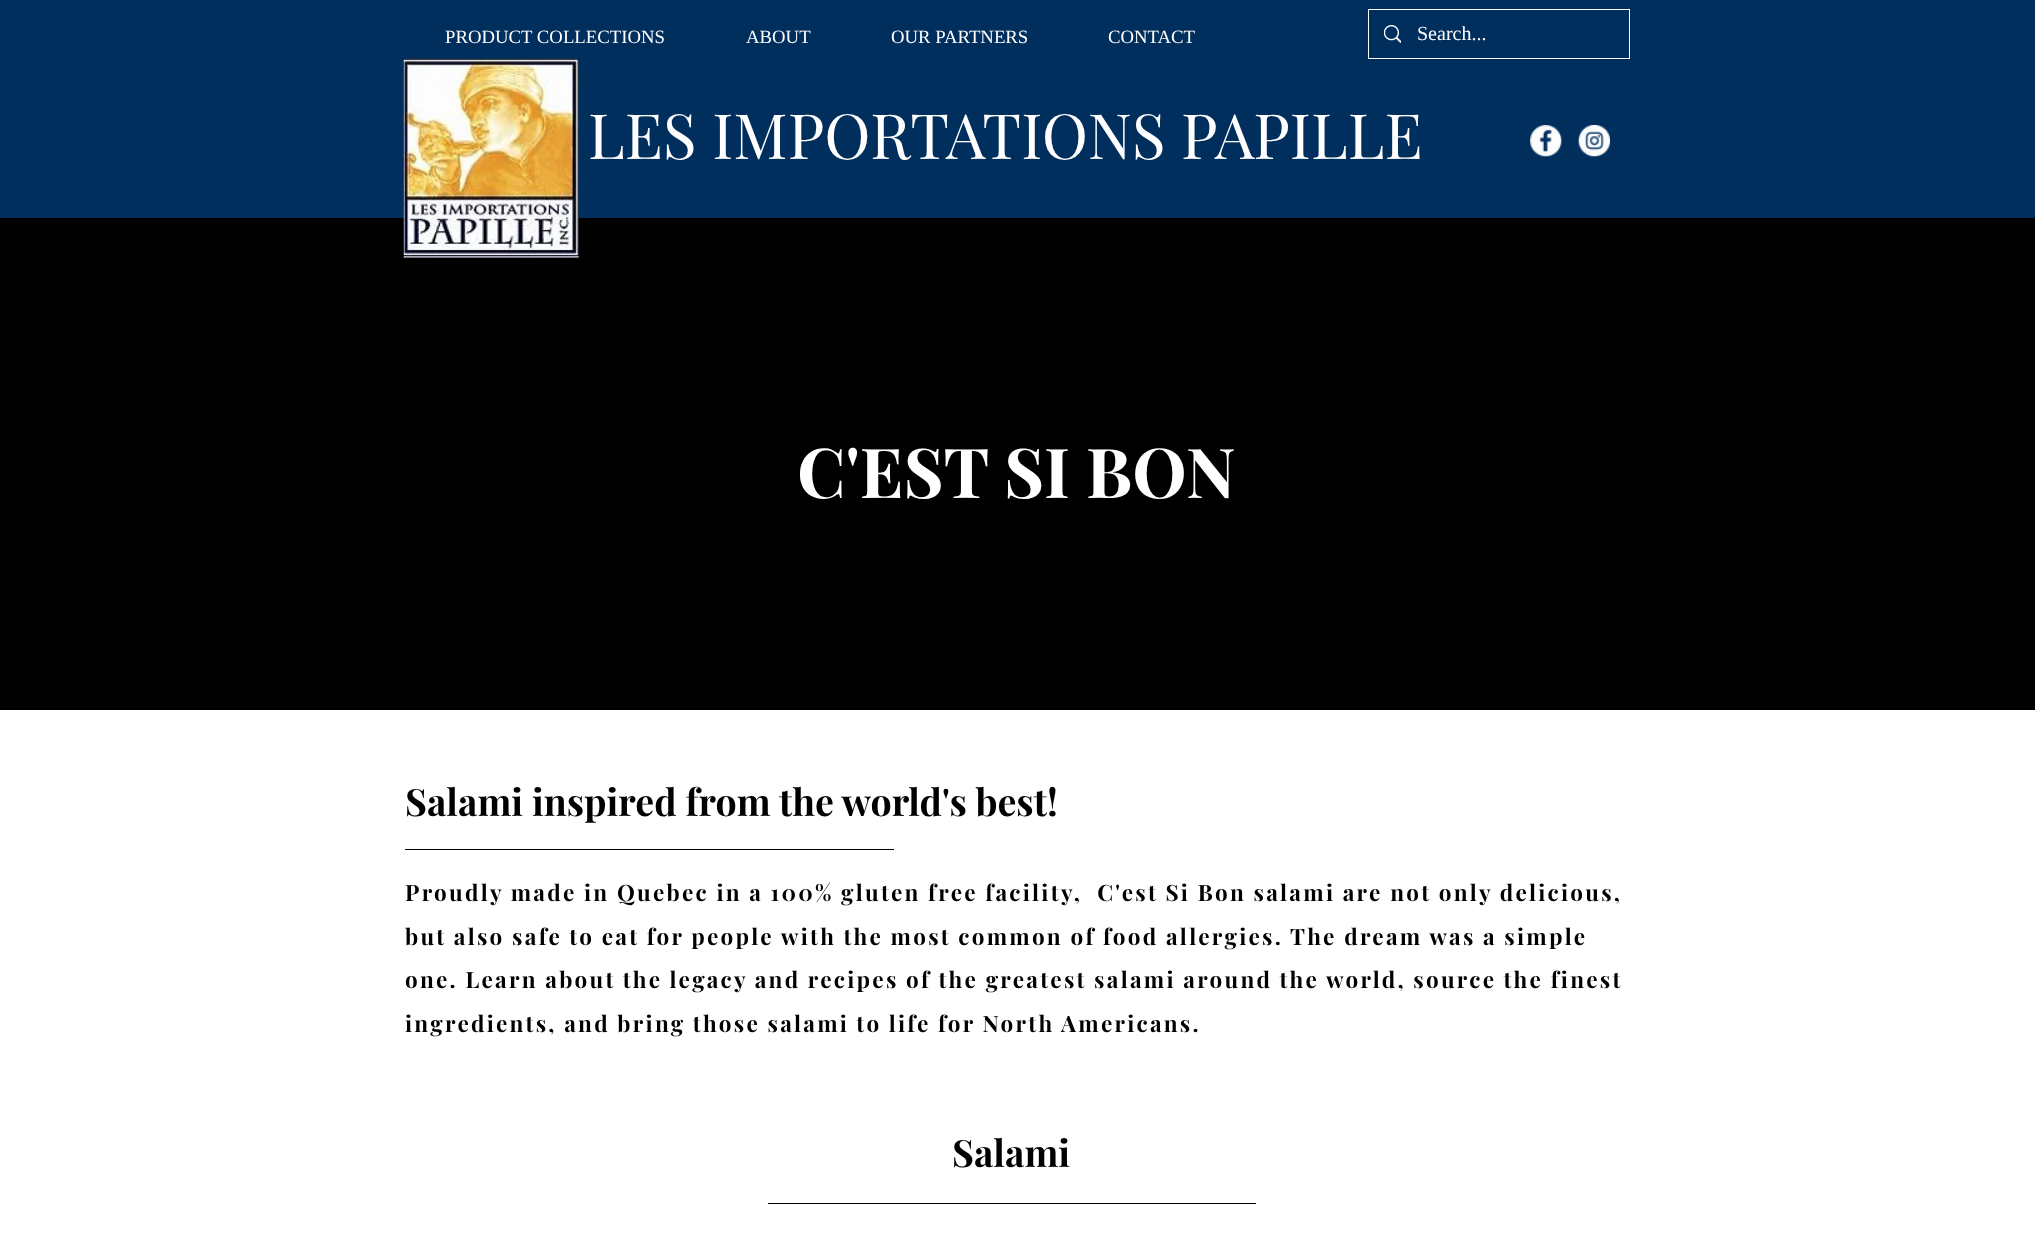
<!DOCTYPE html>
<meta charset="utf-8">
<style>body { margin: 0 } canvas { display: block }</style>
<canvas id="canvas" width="2035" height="1245"></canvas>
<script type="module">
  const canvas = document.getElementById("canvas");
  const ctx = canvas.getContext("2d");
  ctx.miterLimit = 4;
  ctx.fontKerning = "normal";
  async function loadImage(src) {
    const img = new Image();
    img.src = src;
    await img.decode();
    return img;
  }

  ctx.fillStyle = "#ffffff";
  ctx.fillRect(0, 0, 2035, 1245);
  ctx.fillStyle = "#002e5d";
  ctx.fillRect(0, 0, 2035, 218);
  ctx.font = "18.75px Liberation Serif";
  ctx.fillStyle = "#ffffff";
  ctx.fillText("PRODUCT COLLECTIONS", 445, 43);
  ctx.fillText("ABOUT", 746, 43);
  ctx.fillText("OUR PARTNERS", 891, 43);
  ctx.fillText("CONTACT", 1108, 43);
  ctx.strokeStyle = "#ffffff";
  ctx.strokeRect(1368.5, 9.5, 261, 49);
  ctx.drawImage(await loadImage("img1.png"), 1384, 25, 17, 18);
  ctx.font = "20px Liberation Serif";
  ctx.fillText("Search...", 1417, 40);
  ctx.fillStyle = "#000000";
  ctx.fillRect(0, 218, 2035, 492);
  ctx.drawImage(await loadImage("img2.png"), 403, 58, 176, 200);
  ctx.font = "62.5px Playfair Display";
  ctx.fillStyle = "#ffffff";
  ctx.fillText("LES IMPORTATIONS PAPILLE", 588, 159);
  ctx.drawImage(await loadImage("img3.png"), 1530, 125, 32, 32);
  ctx.drawImage(await loadImage("img4.png"), 1578, 125, 32, 32);
  ctx.font = "bold 68.75px Playfair Display";
  ctx.fillText("C'EST SI BON", 797, 498);
  ctx.font = "bold 37.5px 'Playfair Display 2'";
  ctx.fillStyle = "#000000";
  ctx.fillText("Salami inspired from the world's best!", 405, 816);
  ctx.fillRect(405, 849, 489, 1);
  ctx.letterSpacing = "2.25px";
  ctx.font = "bold 22.5px 'Playfair Display 2'";
  ctx.fillText("Proudly made in Quebec in a 100% gluten free facility,  C'est Si Bon salami are not only delicious,", 405, 901);
  ctx.fillText("but also safe to eat for people with the most common of food allergies. The dream was a simple", 405, 945);
  ctx.fillText("one. Learn about the legacy and recipes of the greatest salami around the world, source the finest", 405, 988);
  ctx.fillText("ingredients, and bring those salami to life for North Americans.", 405, 1032);
  ctx.letterSpacing = "0px";
  ctx.font = "bold 37.5px 'Playfair Display 2'";
  ctx.fillText("Salami", 952, 1167);
  ctx.fillRect(768, 1203, 488, 1);
</script>
